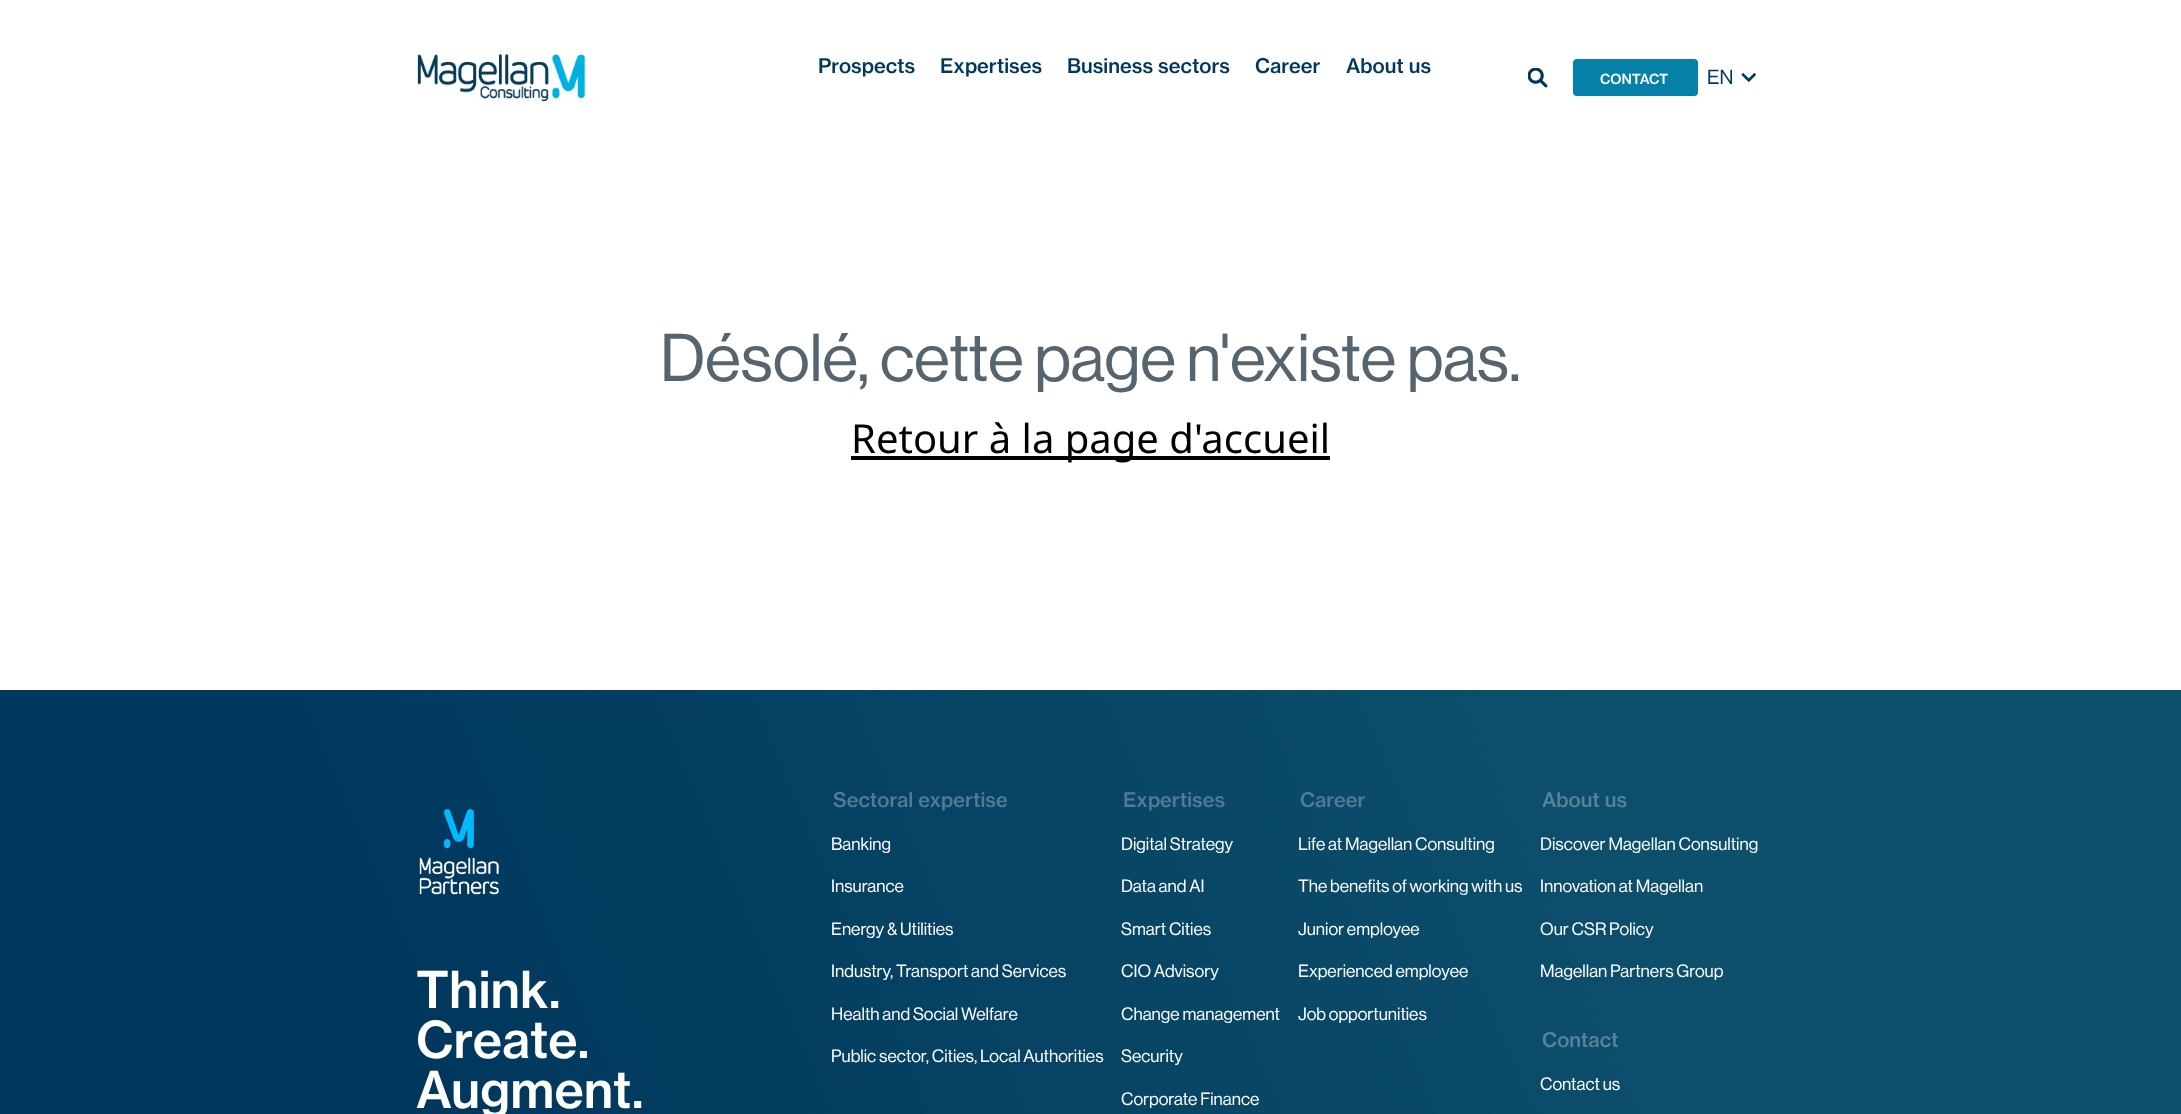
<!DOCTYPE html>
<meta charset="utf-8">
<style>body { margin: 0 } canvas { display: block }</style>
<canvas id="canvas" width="2181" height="1114"></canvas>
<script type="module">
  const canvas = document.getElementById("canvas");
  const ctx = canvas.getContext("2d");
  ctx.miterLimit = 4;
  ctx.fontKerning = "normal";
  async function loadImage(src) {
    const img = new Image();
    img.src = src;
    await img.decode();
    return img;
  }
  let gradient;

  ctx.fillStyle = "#ffffff";
  ctx.fillRect(0, 0, 2181, 1114);
  ctx.drawImage(await loadImage("img1.png"), 417, 54, 169, 48);
  ctx.font = "500 20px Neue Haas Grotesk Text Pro";
  ctx.fillStyle = "#00385d";
  ctx.fillText("Prospects", 818, 73);
  ctx.fillText("Expertises", 940, 73);
  ctx.fillText("Business sectors", 1067, 73);
  ctx.fillText("Career", 1255, 73);
  ctx.fillText("About us", 1346, 73);
  ctx.drawImage(await loadImage("img2.png"), 1528, 68, 20, 20);
  ctx.fillStyle = "#0480a9";
  ctx.beginPath();
  ctx.roundRect(1573, 59, 125, 37, 4);
  ctx.fill();
  ctx.font = "500 13.75px Neue Haas Grotesk Text Pro";
  ctx.fillStyle = "#ffffff";
  ctx.fillText("CONTACT", 1600, 84);
  ctx.font = "20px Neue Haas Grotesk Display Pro";
  ctx.fillStyle = "#00385d";
  ctx.fillText("EN", 1707, 84);
  ctx.drawImage(await loadImage("img3.png"), 1741, 72, 15, 11);
  ctx.font = "66.25px Neue Haas Grotesk Display Pro";
  ctx.fillStyle = "#55646f";
  ctx.fillText("Désolé, cette page n'existe pas.", 660, 381);
  ctx.fillStyle = "#000000";
  ctx.fillRect(851, 456, 479, 4);
  ctx.font = "40px Noto Sans";
  ctx.fillText("Retour à la page d'accueil", 851, 453);
  gradient = ctx.createLinearGradient(2171, 666, 10, 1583);
  gradient.addColorStop(0.22, "#0d506c");
  gradient.addColorStop(0.75, "#00385d");
  ctx.fillStyle = gradient;
  ctx.fillRect(0, 690, 2181, 424);
  ctx.drawImage(await loadImage("img4.png"), 419, 809, 80, 86);
  ctx.font = "500 50px Neue Haas Grotesk Text Pro";
  ctx.fillStyle = "#ffffff";
  ctx.fillText("Think.", 416, 1008);
  ctx.fillText("Create.", 416, 1058);
  ctx.fillText("Augment.", 416, 1108);
  ctx.font = "500 20px Neue Haas Grotesk Text Pro";
  ctx.fillStyle = "#517b92";
  ctx.fillText("Sectoral expertise", 833, 807);
  ctx.font = "17.5px Neue Haas Grotesk Display Pro";
  ctx.fillStyle = "#ffffff";
  ctx.fillText("Banking", 831, 850);
  ctx.fillText("Insurance", 831, 892);
  ctx.fillText("Energy & Utilities", 831, 935);
  ctx.fillText("Industry, Transport and Services", 831, 977);
  ctx.fillText("Health and Social Welfare", 831, 1020);
  ctx.fillText("Public sector, Cities, Local Authorities", 831, 1062);
  ctx.font = "500 20px Neue Haas Grotesk Text Pro";
  ctx.fillStyle = "#517b92";
  ctx.fillText("Expertises", 1123, 807);
  ctx.font = "17.5px Neue Haas Grotesk Display Pro";
  ctx.fillStyle = "#ffffff";
  ctx.fillText("Digital Strategy", 1121, 850);
  ctx.fillText("Data and AI", 1121, 892);
  ctx.fillText("Smart Cities", 1121, 935);
  ctx.fillText("CIO Advisory", 1121, 977);
  ctx.fillText("Change management", 1121, 1020);
  ctx.fillText("Security", 1121, 1062);
  ctx.fillText("Corporate Finance", 1121, 1105);
  ctx.font = "500 20px Neue Haas Grotesk Text Pro";
  ctx.fillStyle = "#517b92";
  ctx.fillText("Career", 1300, 807);
  ctx.font = "17.5px Neue Haas Grotesk Display Pro";
  ctx.fillStyle = "#ffffff";
  ctx.fillText("Life at Magellan Consulting", 1298, 850);
  ctx.fillText("The benefits of working with us", 1298, 892);
  ctx.fillText("Junior employee", 1298, 935);
  ctx.fillText("Experienced employee", 1298, 977);
  ctx.fillText("Job opportunities", 1298, 1020);
  ctx.font = "500 20px Neue Haas Grotesk Text Pro";
  ctx.fillStyle = "#558397";
  ctx.fillText("About us", 1542, 807);
  ctx.font = "17.5px Neue Haas Grotesk Display Pro";
  ctx.fillStyle = "#ffffff";
  ctx.fillText("Discover Magellan Consulting", 1540, 850);
  ctx.fillText("Innovation at Magellan", 1540, 892);
  ctx.fillText("Our CSR Policy", 1540, 935);
  ctx.fillText("Magellan Partners Group", 1540, 977);
  ctx.font = "500 20px Neue Haas Grotesk Text Pro";
  ctx.fillStyle = "#558397";
  ctx.fillText("Contact", 1542, 1047);
  ctx.font = "17.5px Neue Haas Grotesk Display Pro";
  ctx.fillStyle = "#ffffff";
  ctx.fillText("Contact us", 1540, 1090);
</script>
